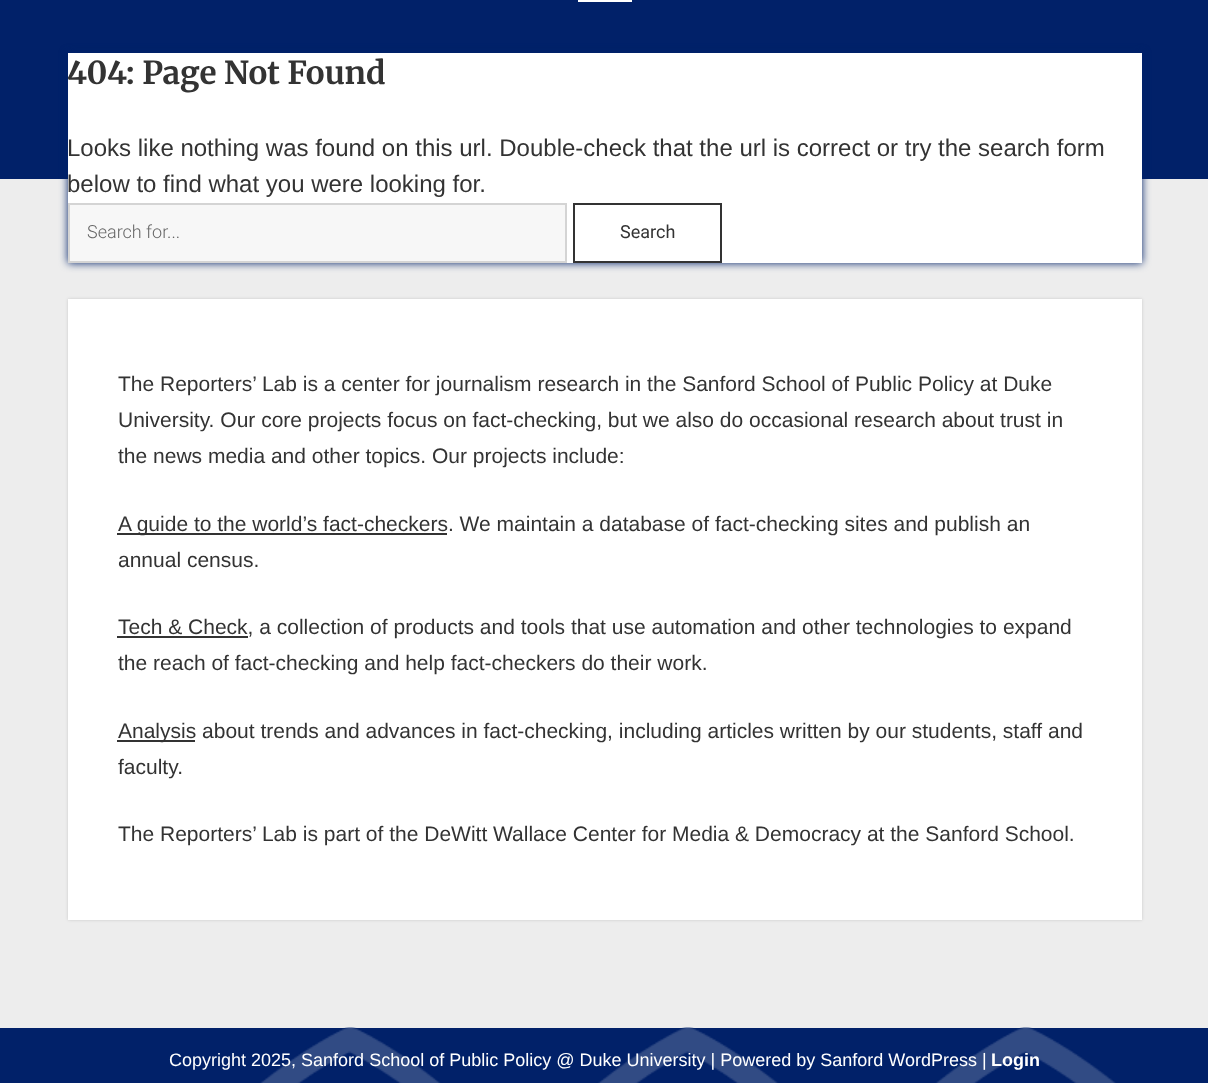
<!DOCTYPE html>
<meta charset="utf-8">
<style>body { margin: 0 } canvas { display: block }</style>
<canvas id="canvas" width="1208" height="1083"></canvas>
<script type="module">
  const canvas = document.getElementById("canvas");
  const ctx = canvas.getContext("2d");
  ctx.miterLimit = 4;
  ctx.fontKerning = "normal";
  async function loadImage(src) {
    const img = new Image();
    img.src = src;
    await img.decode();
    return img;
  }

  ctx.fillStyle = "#ededed";
  ctx.fillRect(0, 0, 1208, 1083);
  ctx.fillStyle = "#012169";
  ctx.fillRect(0, 0, 1208, 179);
  ctx.fillStyle = "#ffffff";
  ctx.fillRect(578, 0, 54, 2);
  ctx.fillStyle = "#012169";
  ctx.filter = "blur(4px)";
  ctx.beginPath();
  ctx.rect(68, 53, 1074, 210);
  ctx.fill();
  ctx.filter = "none";
  ctx.fillStyle = "#ffffff";
  ctx.fillRect(68, 53, 1074, 210);
  ctx.font = "bold 31.5px Merriweather";
  ctx.fillStyle = "#333333";
  ctx.fillText("404: Page Not Found", 67, 84);
  ctx.font = "24px Liberation Sans";
  ctx.fillText("Looks like nothing was found on this url. Double-check that the url is correct or try the search form", 67, 156);
  ctx.fillText("below to find what you were looking for.", 67, 192);
  ctx.fillStyle = "#f7f7f7";
  ctx.beginPath();
  ctx.rect(69, 204, 497, 58);
  ctx.fill();
  ctx.strokeStyle = "#d4d4d4";
  ctx.lineWidth = 2;
  ctx.stroke();
  ctx.font = "300 18px Roboto";
  ctx.fillStyle = "#666666";
  ctx.fillText("Search for...", 87, 238);
  ctx.strokeStyle = "#333333";
  ctx.strokeRect(574, 204, 147, 58);
  ctx.font = "18px Roboto";
  ctx.fillStyle = "#333333";
  ctx.fillText("Search", 620, 238);
  ctx.fillStyle = "rgba(58, 58, 58, 0.2)";
  ctx.filter = "blur(1.5px)";
  ctx.beginPath();
  ctx.rect(68, 299, 1074, 621);
  ctx.fill();
  ctx.filter = "none";
  ctx.fillStyle = "#ffffff";
  ctx.fillRect(68, 299, 1074, 621);
  ctx.font = "21px Liberation Sans";
  ctx.fillStyle = "#333333";
  ctx.fillText("The Reporters’ Lab is a center for journalism research in the Sanford School of Public Policy at Duke", 118, 391);
  ctx.fillText("University. Our core projects focus on fact-checking, but we also do occasional research about trust in", 118, 427);
  ctx.fillText("the news media and other topics. Our projects include:", 118, 463);
  ctx.fillRect(117, 533, 330, 2);
  ctx.fillText("A guide to the world’s fact-checkers. We maintain a database of fact-checking sites and publish an", 118, 531);
  ctx.fillText("annual census.", 118, 567);
  ctx.fillRect(117, 636, 131, 2);
  ctx.fillText("Tech & Check, a collection of products and tools that use automation and other technologies to expand", 118, 634);
  ctx.fillText("the reach of fact-checking and help fact-checkers do their work.", 118, 670);
  ctx.fillRect(117, 740, 78, 2);
  ctx.fillText("Analysis about trends and advances in fact-checking, including articles written by our students, staff and", 118, 738);
  ctx.fillText("faculty.", 118, 774);
  ctx.fillText("The Reporters’ Lab is part of the DeWitt Wallace Center for Media & Democracy at the Sanford School.", 118, 841);
  ctx.fillStyle = "#012169";
  ctx.fillRect(0, 1028, 1208, 55);
  ctx.drawImage(await loadImage("img1.png"), 260, 1027, 856, 56);
  ctx.font = "18px Liberation Sans";
  ctx.fillStyle = "#ffffff";
  ctx.fillText("Copyright 2025, Sanford School of Public Policy @ Duke University | Powered by Sanford WordPress |", 169, 1066);
  ctx.font = "bold 18px Liberation Sans";
  ctx.fillText("Login", 991, 1066);
</script>
